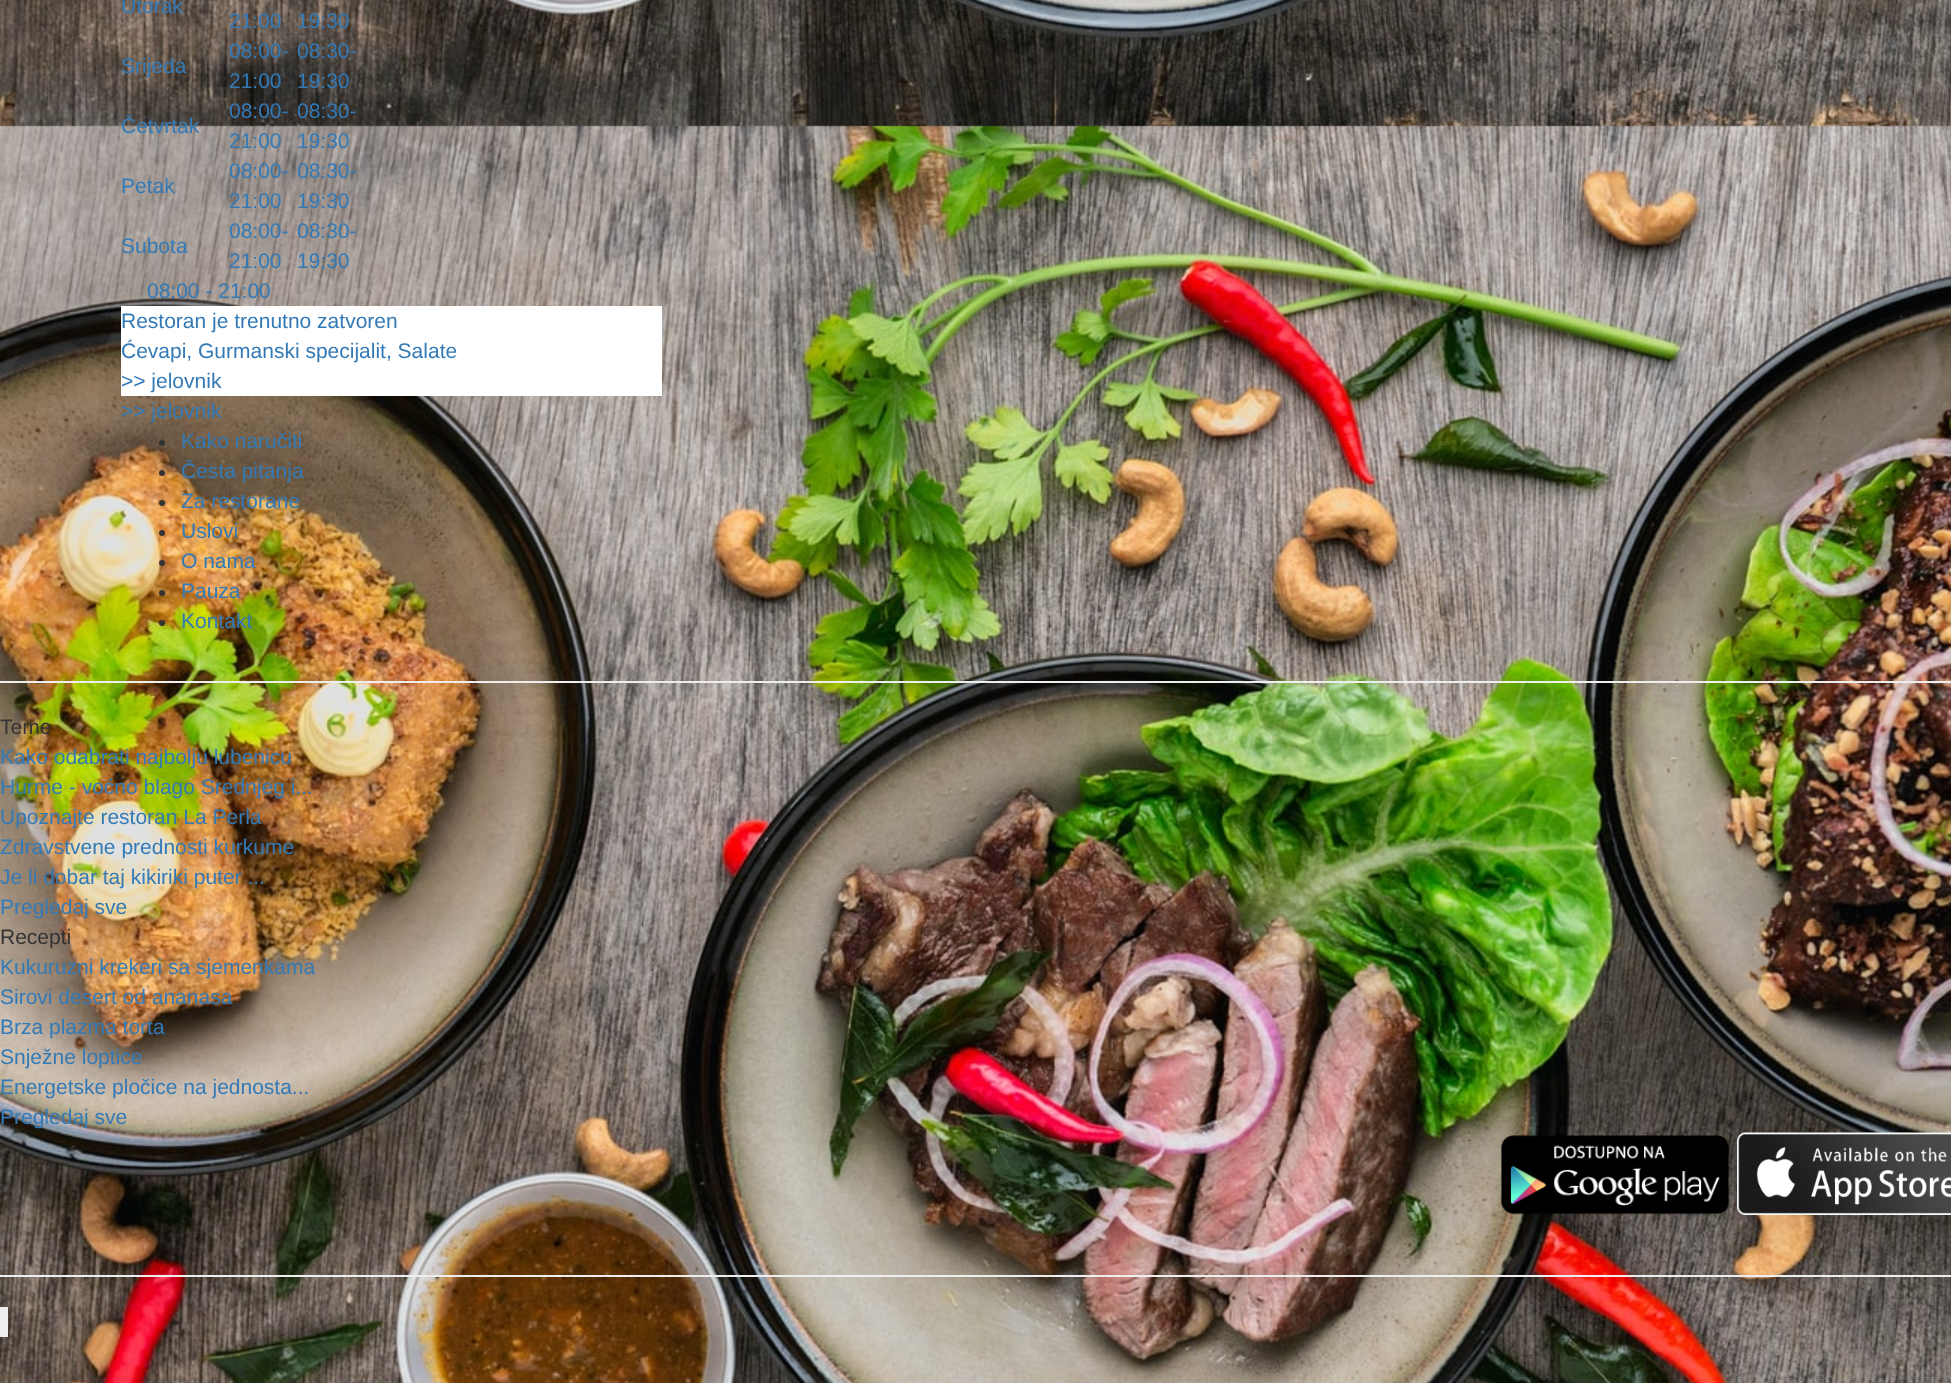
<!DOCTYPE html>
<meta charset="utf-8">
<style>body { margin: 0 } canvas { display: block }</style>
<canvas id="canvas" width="1951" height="1383"></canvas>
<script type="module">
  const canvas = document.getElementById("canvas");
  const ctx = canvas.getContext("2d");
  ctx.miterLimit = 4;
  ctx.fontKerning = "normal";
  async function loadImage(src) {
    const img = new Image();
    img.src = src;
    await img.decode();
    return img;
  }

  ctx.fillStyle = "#ffffff";
  ctx.fillRect(0, 0, 1951, 1383);
  ctx.drawImage(await loadImage("img1.png"), 0, 0, 1951, 1383);
  ctx.font = "21px Liberation Sans";
  ctx.fillStyle = "#337ab7";
  ctx.fillText("Utorak", 121, 13);
  ctx.fillText("21:00", 229, 28);
  ctx.fillText("19:30", 297, 28);
  ctx.fillText("Srijeda", 121, 73);
  ctx.fillText("08:00-", 229, 58);
  ctx.fillText("21:00", 229, 88);
  ctx.fillText("08:30-", 297, 58);
  ctx.fillText("19:30", 297, 88);
  ctx.fillText("Četvrtak", 121, 133);
  ctx.fillText("08:00-", 229, 118);
  ctx.fillText("21:00", 229, 148);
  ctx.fillText("08:30-", 297, 118);
  ctx.fillText("19:30", 297, 148);
  ctx.fillText("Petak", 121, 193);
  ctx.fillText("08:00-", 229, 178);
  ctx.fillText("21:00", 229, 208);
  ctx.fillText("08:30-", 297, 178);
  ctx.fillText("19:30", 297, 208);
  ctx.fillText("Subota", 121, 253);
  ctx.fillText("08:00-", 229, 238);
  ctx.fillText("21:00", 229, 268);
  ctx.fillText("08:30-", 297, 238);
  ctx.fillText("19:30", 297, 268);
  ctx.fillText("08:00 - 21:00", 147, 298);
  ctx.fillStyle = "#ffffff";
  ctx.fillRect(121, 306, 541, 90);
  ctx.fillStyle = "#337ab7";
  ctx.fillText("Restoran je trenutno zatvoren", 121, 328);
  ctx.fillText("Ćevapi, Gurmanski specijalit, Salate", 121, 358);
  ctx.fillText(">> jelovnik", 121, 388);
  ctx.fillText(">> jelovnik", 121, 418);
  ctx.fillStyle = "#333333";
  ctx.beginPath();
  ctx.arc(162, 443, 3, 0, Math.PI * 2);
  ctx.fill();
  ctx.fillStyle = "#337ab7";
  ctx.fillText("Kako naručiti", 181, 448);
  ctx.fillStyle = "#333333";
  ctx.beginPath();
  ctx.arc(162, 473, 3, 0, Math.PI * 2);
  ctx.fill();
  ctx.fillStyle = "#337ab7";
  ctx.fillText("Česta pitanja", 181, 478);
  ctx.fillStyle = "#333333";
  ctx.beginPath();
  ctx.arc(162, 503, 3, 0, Math.PI * 2);
  ctx.fill();
  ctx.fillStyle = "#337ab7";
  ctx.fillText("Za restorane", 181, 508);
  ctx.fillStyle = "#333333";
  ctx.beginPath();
  ctx.arc(162, 533, 3, 0, Math.PI * 2);
  ctx.fill();
  ctx.fillStyle = "#337ab7";
  ctx.fillText("Uslovi", 181, 538);
  ctx.fillStyle = "#333333";
  ctx.beginPath();
  ctx.arc(162, 563, 3, 0, Math.PI * 2);
  ctx.fill();
  ctx.fillStyle = "#337ab7";
  ctx.fillText("O nama", 181, 568);
  ctx.fillStyle = "#333333";
  ctx.beginPath();
  ctx.arc(162, 593, 3, 0, Math.PI * 2);
  ctx.fill();
  ctx.fillStyle = "#337ab7";
  ctx.fillText("Pauza", 181, 598);
  ctx.fillStyle = "#333333";
  ctx.beginPath();
  ctx.arc(162, 623, 3, 0, Math.PI * 2);
  ctx.fill();
  ctx.fillStyle = "#337ab7";
  ctx.fillText("Kontakt", 181, 628);
  ctx.fillStyle = "#eeeeee";
  ctx.fillRect(0, 681, 1951, 2);
  ctx.fillStyle = "#333333";
  ctx.fillText("Teme", 0, 734);
  ctx.fillStyle = "#337ab7";
  ctx.fillText("Kako odabrati najbolju lubenicu", 0, 764);
  ctx.fillText("Hurme - voćno blago Srednjeg i...", 0, 794);
  ctx.fillText("Upoznajte restoran La Perla", 0, 824);
  ctx.fillText("Zdravstvene prednosti kurkume", 0, 854);
  ctx.fillText("Je li dobar taj kikiriki puter ...", 0, 884);
  ctx.fillText("Pregledaj sve", 0, 914);
  ctx.fillStyle = "#333333";
  ctx.fillText("Recepti", 0, 944);
  ctx.fillStyle = "#337ab7";
  ctx.fillText("Kukuruzni krekeri sa sjemenkama", 0, 974);
  ctx.fillText("Sirovi desert od ananasa", 0, 1004);
  ctx.fillText("Brza plazma torta", 0, 1034);
  ctx.fillText("Snježne loptice", 0, 1064);
  ctx.fillText("Energetske pločice na jednosta...", 0, 1094);
  ctx.fillText("Pregledaj sve", 0, 1124);
  ctx.drawImage(await loadImage("img2.png"), 1501, 1135, 228, 80);
  ctx.drawImage(await loadImage("img3.png"), 1737, 1132, 214, 83);
  ctx.fillStyle = "#eeeeee";
  ctx.fillRect(0, 1275, 1951, 2);
  ctx.fillRect(0, 1307, 8, 30);
</script>
